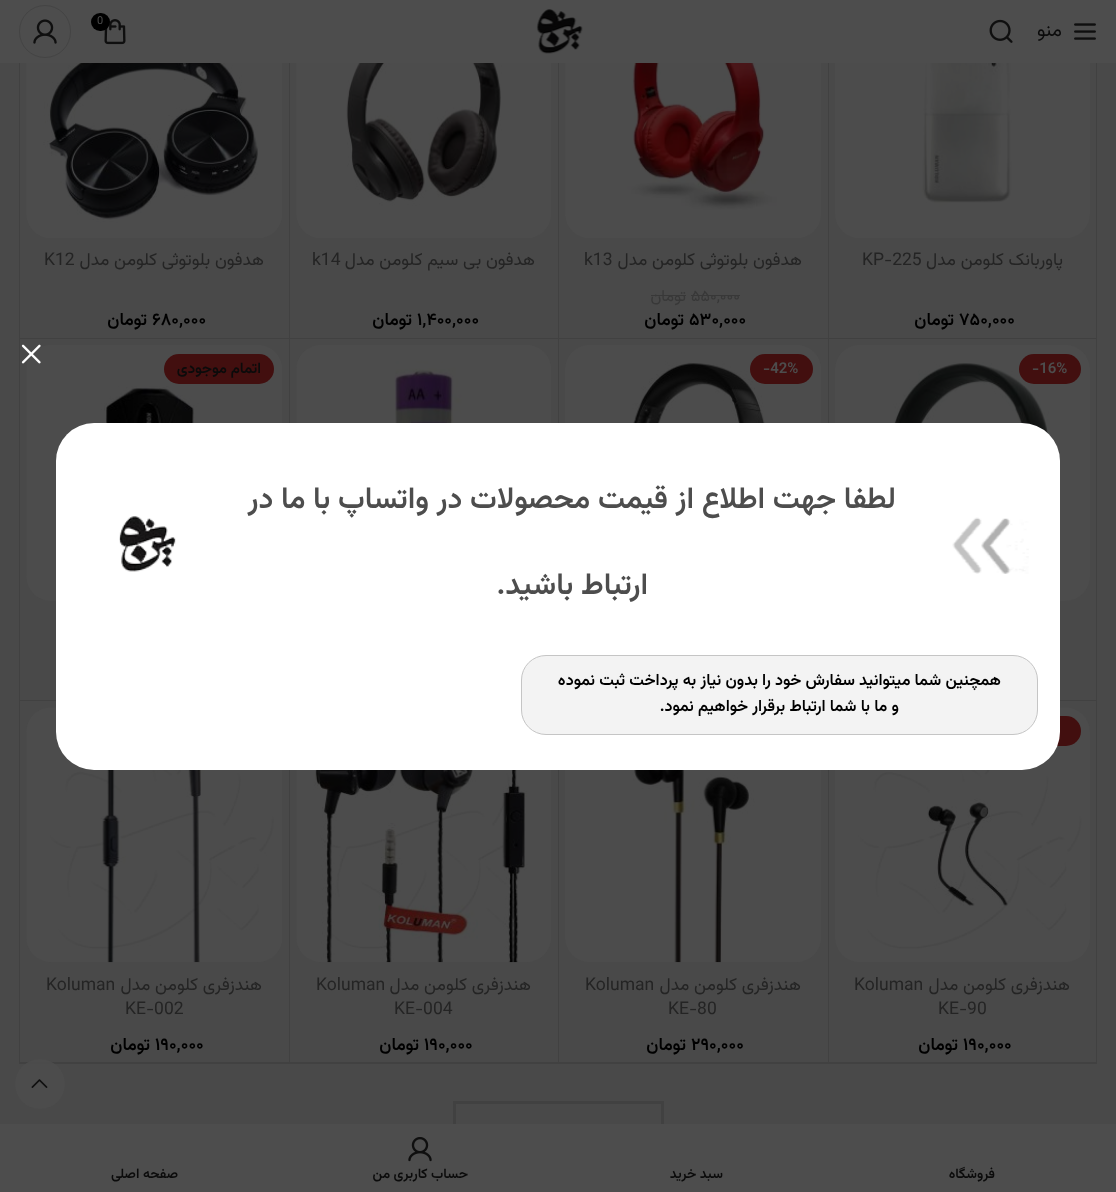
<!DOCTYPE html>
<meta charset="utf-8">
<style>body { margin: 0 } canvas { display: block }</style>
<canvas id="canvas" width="1116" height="1192"></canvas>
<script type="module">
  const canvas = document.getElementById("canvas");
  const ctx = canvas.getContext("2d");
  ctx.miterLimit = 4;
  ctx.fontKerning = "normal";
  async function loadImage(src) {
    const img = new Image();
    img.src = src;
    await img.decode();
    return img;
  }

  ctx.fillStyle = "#494949";
  ctx.fillRect(0, 0, 1116, 1192);
  ctx.fillStyle = "#404040";
  ctx.beginPath();
  ctx.moveTo(1096, 339);
  ctx.lineTo(828, 339);
  ctx.lineTo(829, 338);
  ctx.lineTo(1096, 338);
  ctx.closePath();
  ctx.fill();
  ctx.fillStyle = "rgba(0, 0, 0, 0.11)";
  ctx.beginPath();
  ctx.moveTo(828, 339);
  ctx.lineTo(828, -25);
  ctx.lineTo(829, -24);
  ctx.lineTo(829, 338);
  ctx.closePath();
  ctx.fill();
  ctx.beginPath();
  ctx.moveTo(828, 339);
  ctx.lineTo(558, 339);
  ctx.lineTo(559, 338);
  ctx.lineTo(828, 338);
  ctx.closePath();
  ctx.fill();
  ctx.beginPath();
  ctx.moveTo(558, 339);
  ctx.lineTo(558, -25);
  ctx.lineTo(559, -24);
  ctx.lineTo(559, 338);
  ctx.closePath();
  ctx.fill();
  ctx.beginPath();
  ctx.moveTo(558, 339);
  ctx.lineTo(289, 339);
  ctx.lineTo(290, 338);
  ctx.lineTo(558, 338);
  ctx.closePath();
  ctx.fill();
  ctx.beginPath();
  ctx.moveTo(289, 339);
  ctx.lineTo(289, -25);
  ctx.lineTo(290, -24);
  ctx.lineTo(290, 338);
  ctx.closePath();
  ctx.fill();
  ctx.beginPath();
  ctx.moveTo(289, 339);
  ctx.lineTo(19, 339);
  ctx.lineTo(20, 338);
  ctx.lineTo(289, 338);
  ctx.closePath();
  ctx.fill();
  ctx.beginPath();
  ctx.moveTo(19, 339);
  ctx.lineTo(19, -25);
  ctx.lineTo(20, -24);
  ctx.lineTo(20, 338);
  ctx.closePath();
  ctx.fill();
  ctx.fillStyle = "#4d4d4d";
  ctx.fillRect(0, 0, 1116, 63);
  ctx.drawImage(await loadImage("img1.png"), 536, 9, 47, 45);
  ctx.drawImage(await loadImage("img2.png"), 104, 19, 22, 26);
  ctx.fillStyle = "#000000";
  ctx.beginPath();
  ctx.roundRect(91, 13, 19, 18, 9);
  ctx.fill();
  ctx.font = "11px Vazirmatn";
  ctx.fillStyle = "#4d4d4d";
  ctx.fillText("0", 97, 24);
  ctx.beginPath();
  ctx.roundRect(19.5, 5.5, 51, 52, 25.5);
  ctx.strokeStyle = "#444444";
  ctx.stroke();
  ctx.drawImage(await loadImage("img3.png"), 33, 19, 24, 25);
  ctx.drawImage(await loadImage("img4.png"), 1074, 23, 22, 17);
  ctx.direction = "rtl";
  ctx.font = "19px Vazirmatn";
  ctx.fillStyle = "#0b0b0b";
  ctx.fillText("منو", 1062, 36);
  ctx.drawImage(await loadImage("img5.png"), 989, 19, 24, 24);
  ctx.fillStyle = "#414141";
  ctx.fillRect(1096, 63, 1, 1001);
  ctx.drawImage(await loadImage("img6.png"), 835, 63, 255, 175);
  ctx.font = "17.5px Vazirmatn";
  ctx.fillStyle = "#242424";
  ctx.fillText("پاوربانک کلومن مدل", 1063, 265);
  ctx.direction = "ltr";
  ctx.fillText("KP-225", 862, 265);
  ctx.font = "600 17.5px Vazirmatn";
  ctx.fillStyle = "#000000";
  ctx.fillText("۷۵۰,۰۰۰", 959, 325);
  ctx.direction = "rtl";
  ctx.fillText("تومان", 954, 325);
  ctx.drawImage(await loadImage("img7.png"), 565, 63, 256, 175);
  ctx.font = "17.5px Vazirmatn";
  ctx.fillStyle = "#242424";
  ctx.fillText("هدفون بلوتوثی کلومن مدل", 802, 265);
  ctx.direction = "ltr";
  ctx.fillText("k13", 584, 265);
  ctx.font = "16px Vazirmatn";
  ctx.fillStyle = "#383838";
  ctx.fillText("۵۵۰,۰۰۰", 691, 301);
  ctx.fillRect(691, 295, 49, 1);
  ctx.direction = "rtl";
  ctx.fillText("تومان", 686, 301);
  ctx.fillRect(651, 295, 35, 1);
  ctx.direction = "ltr";
  ctx.font = "600 17.5px Vazirmatn";
  ctx.fillStyle = "#000000";
  ctx.fillText("۵۳۰,۰۰۰", 689, 325);
  ctx.direction = "rtl";
  ctx.fillText("تومان", 684, 325);
  ctx.drawImage(await loadImage("img8.png"), 296, 63, 255, 175);
  ctx.font = "17.5px Vazirmatn";
  ctx.fillStyle = "#242424";
  ctx.fillText("هدفون بی سیم کلومن مدل", 535, 265);
  ctx.direction = "ltr";
  ctx.fillText("k14", 312, 265);
  ctx.font = "600 17.5px Vazirmatn";
  ctx.fillStyle = "#000000";
  ctx.fillText("۱,۴۰۰,۰۰۰", 417, 325);
  ctx.direction = "rtl";
  ctx.fillText("تومان", 412, 325);
  ctx.drawImage(await loadImage("img9.png"), 26, 63, 256, 175);
  ctx.font = "17.5px Vazirmatn";
  ctx.fillStyle = "#242424";
  ctx.fillText("هدفون بلوتوثی کلومن مدل", 264, 265);
  ctx.direction = "ltr";
  ctx.fillText("K12", 44, 265);
  ctx.font = "600 17.5px Vazirmatn";
  ctx.fillStyle = "#000000";
  ctx.fillText("۶۸۰,۰۰۰", 152, 325);
  ctx.direction = "rtl";
  ctx.fillText("تومان", 147, 325);
  ctx.fillStyle = "#414141";
  ctx.beginPath();
  ctx.moveTo(1096, 701);
  ctx.lineTo(828, 701);
  ctx.lineTo(829, 700);
  ctx.lineTo(1096, 700);
  ctx.closePath();
  ctx.fill();
  ctx.fillStyle = "rgba(0, 0, 0, 0.11)";
  ctx.beginPath();
  ctx.moveTo(828, 701);
  ctx.lineTo(828, 339);
  ctx.lineTo(829, 339);
  ctx.lineTo(829, 700);
  ctx.closePath();
  ctx.fill();
  ctx.drawImage(await loadImage("img10.png"), 835, 345, 255, 256);
  ctx.fillStyle = "#420f0f";
  ctx.beginPath();
  ctx.roundRect(1019, 354, 62, 30, 15);
  ctx.fill();
  ctx.direction = "ltr";
  ctx.font = "600 15px Vazirmatn";
  ctx.fillStyle = "#4d4d4d";
  ctx.fillText("-16%", 1032, 373);
  ctx.fillStyle = "rgba(0, 0, 0, 0.11)";
  ctx.beginPath();
  ctx.moveTo(558, 701);
  ctx.lineTo(558, 339);
  ctx.lineTo(559, 339);
  ctx.lineTo(559, 700);
  ctx.closePath();
  ctx.fill();
  ctx.drawImage(await loadImage("img11.png"), 565, 345, 256, 78);
  ctx.fillStyle = "#420f0f";
  ctx.beginPath();
  ctx.roundRect(750, 354, 63, 30, 15);
  ctx.fill();
  ctx.fillStyle = "#4d4d4d";
  ctx.fillText("-42%", 763, 373);
  ctx.fillStyle = "rgba(0, 0, 0, 0.11)";
  ctx.beginPath();
  ctx.moveTo(289, 701);
  ctx.lineTo(289, 339);
  ctx.lineTo(290, 339);
  ctx.lineTo(290, 700);
  ctx.closePath();
  ctx.fill();
  ctx.drawImage(await loadImage("img12.png"), 296, 345, 255, 78);
  ctx.beginPath();
  ctx.moveTo(289, 701);
  ctx.lineTo(19, 701);
  ctx.lineTo(20, 700);
  ctx.lineTo(289, 700);
  ctx.closePath();
  ctx.fill();
  ctx.beginPath();
  ctx.moveTo(19, 701);
  ctx.lineTo(19, 339);
  ctx.lineTo(20, 339);
  ctx.lineTo(20, 700);
  ctx.closePath();
  ctx.fill();
  ctx.drawImage(await loadImage("img13.png"), 26, 345, 256, 256);
  ctx.fillStyle = "#420f0f";
  ctx.beginPath();
  ctx.roundRect(164, 354, 110, 30, 15);
  ctx.fill();
  ctx.direction = "rtl";
  ctx.fillStyle = "#0b0b0b";
  ctx.fillText("اتمام موجودی", 261, 373);
  ctx.fillStyle = "rgba(0, 0, 0, 0.11)";
  ctx.beginPath();
  ctx.moveTo(1096, 1064);
  ctx.lineTo(828, 1064);
  ctx.lineTo(829, 1062);
  ctx.lineTo(1096, 1062);
  ctx.closePath();
  ctx.fill();
  ctx.beginPath();
  ctx.moveTo(828, 1064);
  ctx.lineTo(828, 701);
  ctx.lineTo(829, 701);
  ctx.lineTo(829, 1062);
  ctx.closePath();
  ctx.fill();
  ctx.drawImage(await loadImage("img14.png"), 835, 707, 255, 255);
  ctx.fillStyle = "#420f0f";
  ctx.beginPath();
  ctx.roundRect(973, 716, 108, 30, 15);
  ctx.fill();
  ctx.font = "17.5px Vazirmatn";
  ctx.fillStyle = "#242424";
  ctx.fillText("هندزفری کلومن مدل", 1070, 990);
  ctx.direction = "ltr";
  ctx.fillText("Koluman", 854, 990);
  ctx.fillText("KE-90", 938, 1014);
  ctx.font = "600 17.5px Vazirmatn";
  ctx.fillStyle = "#000000";
  ctx.fillText("۱۹۰,۰۰۰", 963, 1050);
  ctx.direction = "rtl";
  ctx.fillText("تومان", 958, 1050);
  ctx.fillStyle = "rgba(0, 0, 0, 0.11)";
  ctx.beginPath();
  ctx.moveTo(828, 1064);
  ctx.lineTo(558, 1064);
  ctx.lineTo(559, 1062);
  ctx.lineTo(828, 1062);
  ctx.closePath();
  ctx.fill();
  ctx.beginPath();
  ctx.moveTo(558, 1064);
  ctx.lineTo(558, 701);
  ctx.lineTo(559, 701);
  ctx.lineTo(559, 1062);
  ctx.closePath();
  ctx.fill();
  ctx.drawImage(await loadImage("img15.png"), 565, 770, 256, 193);
  ctx.font = "17.5px Vazirmatn";
  ctx.fillStyle = "#242424";
  ctx.fillText("هندزفری کلومن مدل", 801, 990);
  ctx.direction = "ltr";
  ctx.fillText("Koluman", 585, 990);
  ctx.fillText("KE-80", 668, 1014);
  ctx.font = "600 17.5px Vazirmatn";
  ctx.fillStyle = "#000000";
  ctx.fillText("۲۹۰,۰۰۰", 691, 1050);
  ctx.direction = "rtl";
  ctx.fillText("تومان", 686, 1050);
  ctx.fillStyle = "rgba(0, 0, 0, 0.11)";
  ctx.beginPath();
  ctx.moveTo(558, 1064);
  ctx.lineTo(289, 1064);
  ctx.lineTo(290, 1062);
  ctx.lineTo(558, 1062);
  ctx.closePath();
  ctx.fill();
  ctx.beginPath();
  ctx.moveTo(289, 1064);
  ctx.lineTo(289, 701);
  ctx.lineTo(290, 701);
  ctx.lineTo(290, 1062);
  ctx.closePath();
  ctx.fill();
  ctx.drawImage(await loadImage("img16.png"), 296, 770, 255, 193);
  ctx.font = "17.5px Vazirmatn";
  ctx.fillStyle = "#242424";
  ctx.fillText("هندزفری کلومن مدل", 531, 990);
  ctx.direction = "ltr";
  ctx.fillText("Koluman", 316, 990);
  ctx.fillText("KE-004", 394, 1014);
  ctx.font = "600 17.5px Vazirmatn";
  ctx.fillStyle = "#000000";
  ctx.fillText("۱۹۰,۰۰۰", 424, 1050);
  ctx.direction = "rtl";
  ctx.fillText("تومان", 419, 1050);
  ctx.fillStyle = "rgba(0, 0, 0, 0.11)";
  ctx.beginPath();
  ctx.moveTo(289, 1064);
  ctx.lineTo(19, 1064);
  ctx.lineTo(20, 1062);
  ctx.lineTo(289, 1062);
  ctx.closePath();
  ctx.fill();
  ctx.beginPath();
  ctx.moveTo(19, 1064);
  ctx.lineTo(19, 701);
  ctx.lineTo(20, 701);
  ctx.lineTo(20, 1062);
  ctx.closePath();
  ctx.fill();
  ctx.drawImage(await loadImage("img17.png"), 26, 707, 256, 256);
  ctx.font = "17.5px Vazirmatn";
  ctx.fillStyle = "#242424";
  ctx.fillText("هندزفری کلومن مدل", 262, 990);
  ctx.direction = "ltr";
  ctx.fillText("Koluman", 46, 990);
  ctx.fillText("KE-002", 125, 1014);
  ctx.font = "600 17.5px Vazirmatn";
  ctx.fillStyle = "#000000";
  ctx.fillText("۱۹۰,۰۰۰", 155, 1050);
  ctx.direction = "rtl";
  ctx.fillText("تومان", 150, 1050);
  ctx.strokeStyle = "#414141";
  ctx.lineWidth = 3;
  ctx.strokeRect(454.5, 1102.5, 208, 50);
  ctx.drawImage(await loadImage("img18.png"), 21, 344, 20, 20);
  ctx.fillStyle = "#ffffff";
  ctx.beginPath();
  ctx.roundRect(56, 423, 1004, 347, 38);
  ctx.fill();
  ctx.drawImage(await loadImage("img19.png"), 952, 517, 77, 57);
  ctx.font = "600 30px Vazirmatn";
  ctx.fillStyle = "#4d4d4d";
  ctx.fillText("لطفا جهت اطلاع از قیمت محصولات در واتساپ با ما در", 896, 508);
  ctx.fillText("ارتباط باشید.", 648, 594);
  ctx.drawImage(await loadImage("img20.png"), 119, 516, 57, 56);
  ctx.fillStyle = "#f3f3f3";
  ctx.beginPath();
  ctx.roundRect(521.5, 655.5, 516, 79, 24.5);
  ctx.fill();
  ctx.strokeStyle = "#c5c5c5";
  ctx.lineWidth = 1;
  ctx.stroke();
  ctx.font = "600 16.25px Vazirmatn";
  ctx.fillStyle = "#000000";
  ctx.fillText("همچنین شما میتوانید سفارش خود را بدون نیاز به پرداخت ثبت نموده", 1001, 685);
  ctx.fillText("و ما با شما ارتباط برقرار خواهیم نمود.", 899, 711);
  ctx.fillStyle = "rgba(77, 77, 77, 0.9)";
  ctx.beginPath();
  ctx.arc(40, 1084, 25, 0, Math.PI * 2);
  ctx.fill();
  ctx.drawImage(await loadImage("img21.png"), 31, 1079, 17, 9);
  ctx.fillStyle = "#4d4d4d";
  ctx.fillRect(0, 1124, 1116, 68);
  ctx.font = "600 13.75px Vazirmatn";
  ctx.fillStyle = "#0b0b0b";
  ctx.fillText("فروشگاه", 995, 1178);
  ctx.fillText("سبد خرید", 723, 1178);
  ctx.drawImage(await loadImage("img22.png"), 408, 1137, 24, 25);
  ctx.fillText("حساب کاربری من", 468, 1178);
  ctx.fillText("صفحه اصلی", 178, 1178);
</script>
